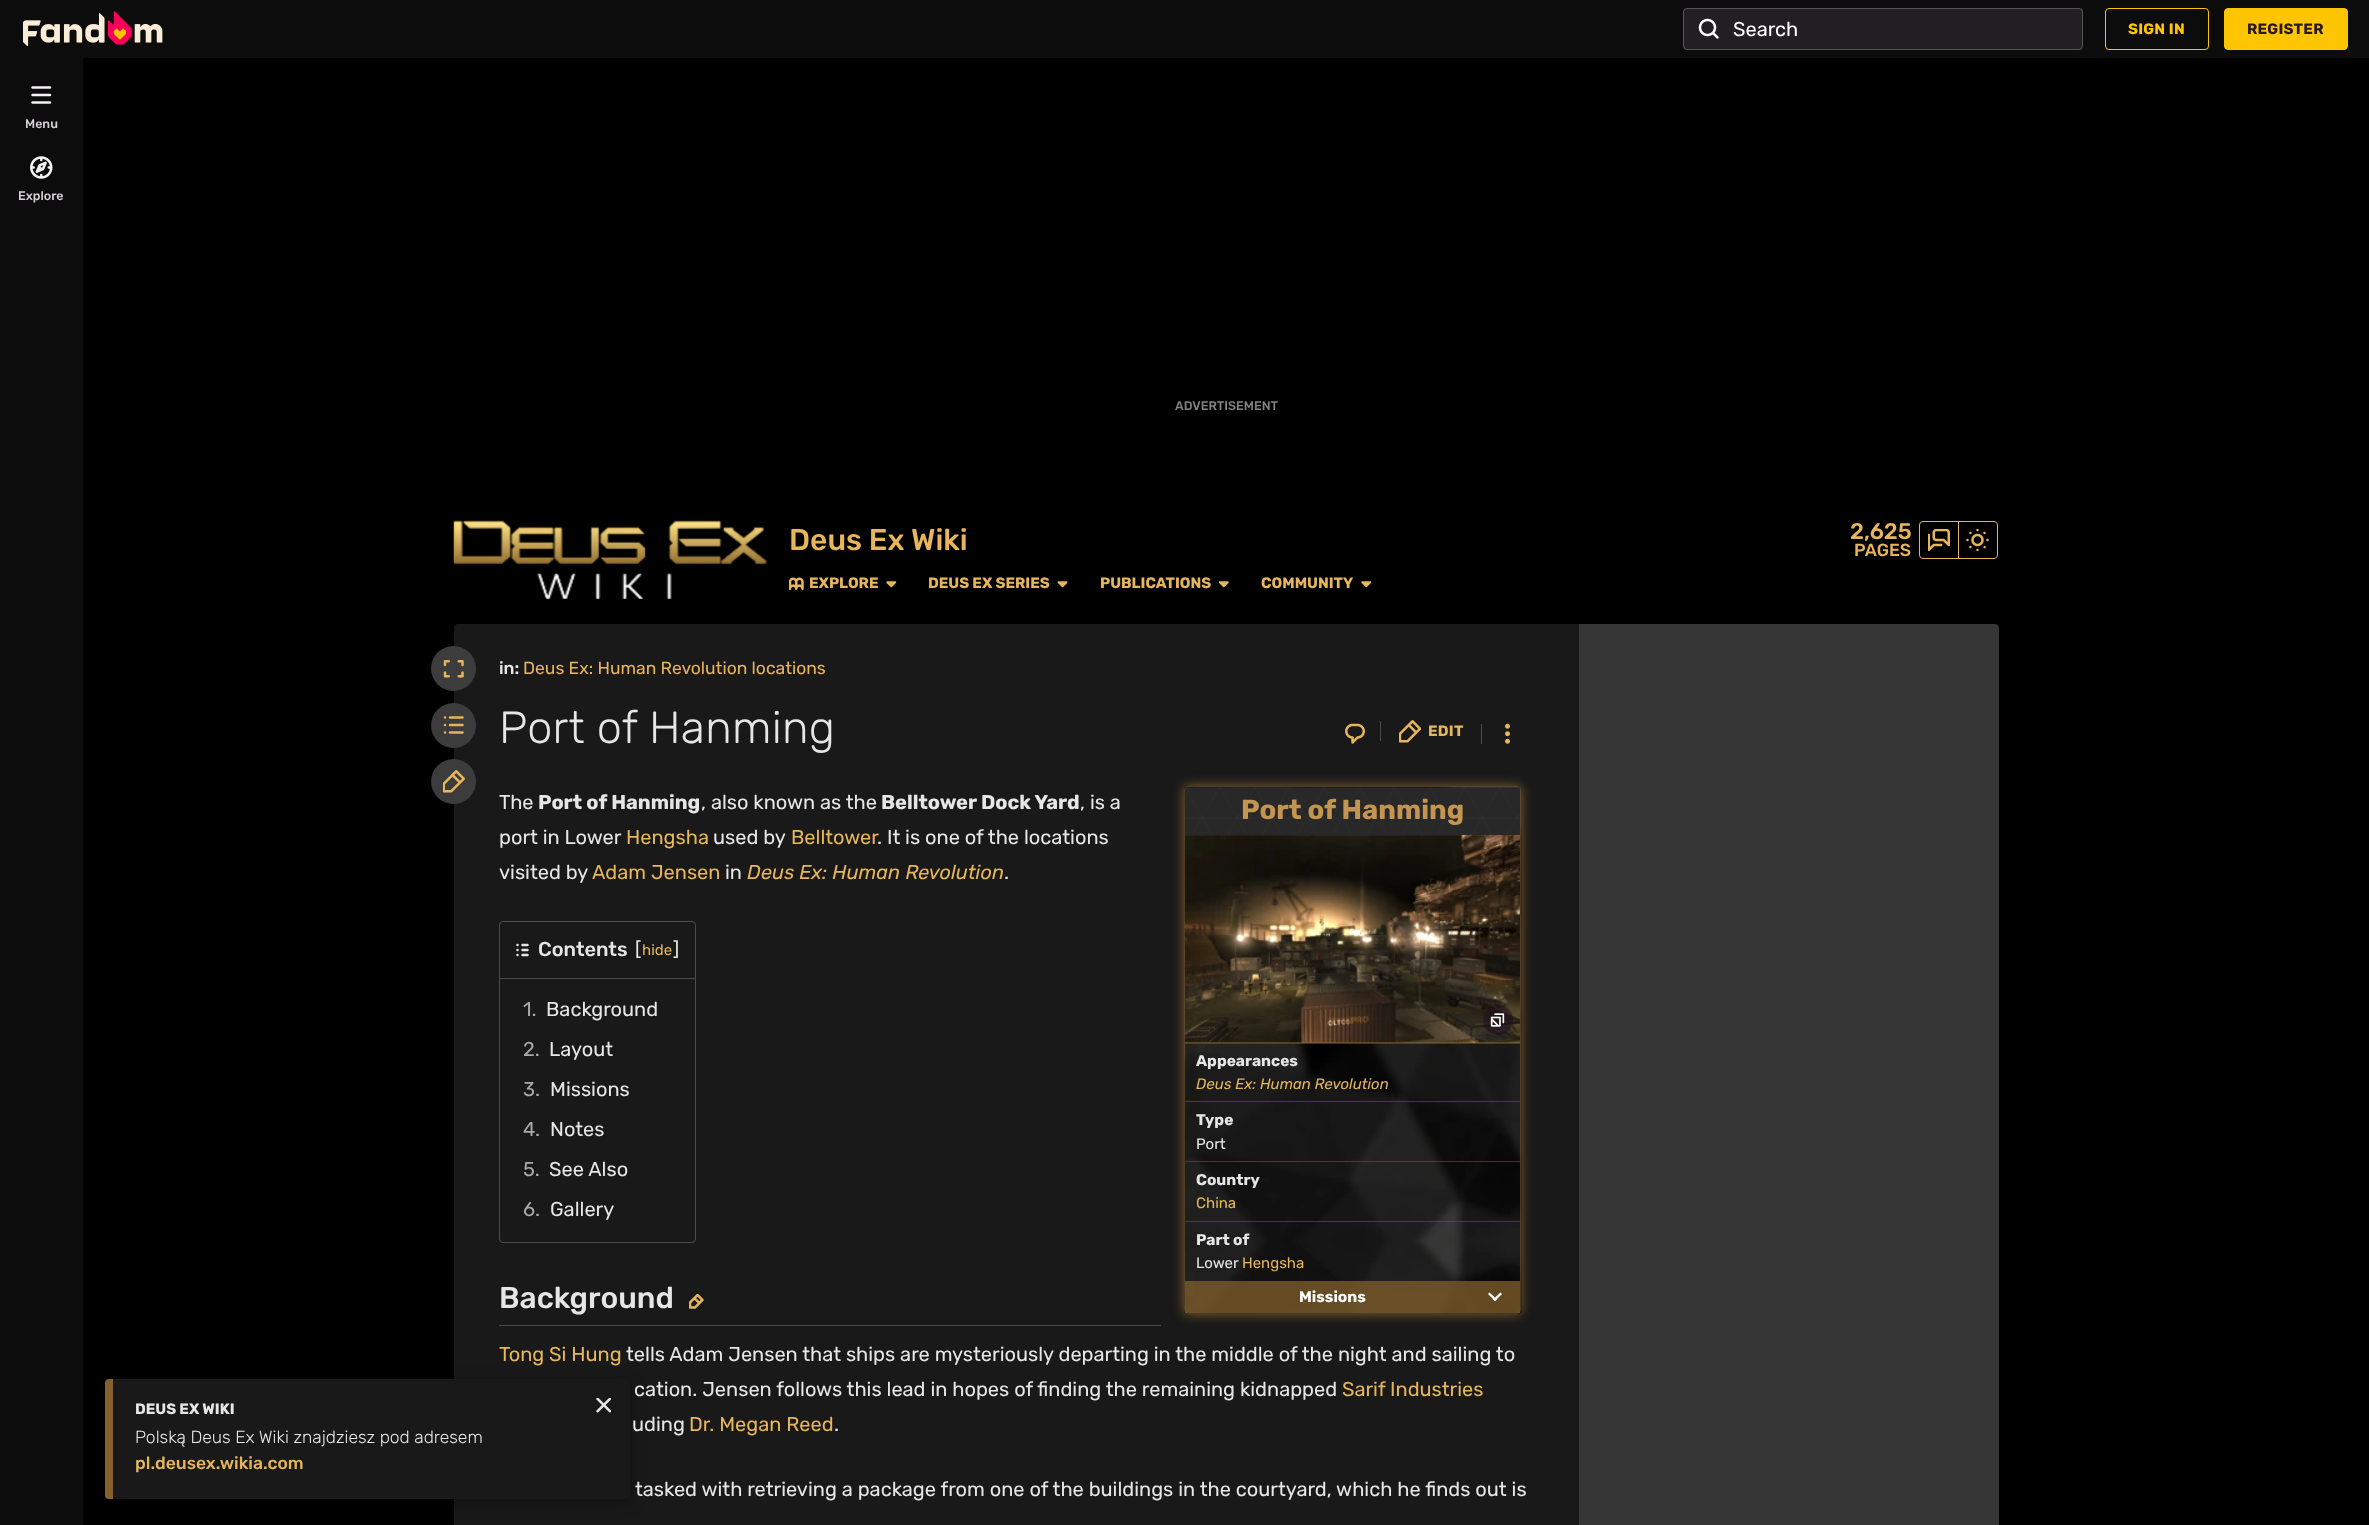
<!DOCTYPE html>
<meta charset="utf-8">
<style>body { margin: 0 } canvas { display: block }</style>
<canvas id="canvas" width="2369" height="1525"></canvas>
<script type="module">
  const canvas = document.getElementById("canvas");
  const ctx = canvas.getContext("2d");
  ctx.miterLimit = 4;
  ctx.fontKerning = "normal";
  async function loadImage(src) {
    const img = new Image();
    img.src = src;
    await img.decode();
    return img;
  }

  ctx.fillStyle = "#000000";
  ctx.fillRect(0, 0, 2369, 1525);
  ctx.fillStyle = "#0c0c0c";
  ctx.fillRect(0, 0, 2369, 58);
  ctx.drawImage(await loadImage("img1.png"), 23, 11, 140, 36);
  ctx.fillStyle = "#211f21";
  ctx.beginPath();
  ctx.roundRect(1683, 8, 400, 42, 4);
  ctx.fill();
  ctx.beginPath();
  ctx.roundRect(1683.5, 8.5, 399, 41, 3.5);
  ctx.strokeStyle = "rgba(245, 243, 245, 0.25)";
  ctx.stroke();
  ctx.drawImage(await loadImage("img2.png"), 1698, 18, 21, 21);
  ctx.font = "20px Rubik";
  ctx.fillStyle = "#ffffff";
  ctx.fillText("Search", 1733, 36);
  ctx.beginPath();
  ctx.roundRect(2105.5, 8.5, 103, 41, 3.5);
  ctx.strokeStyle = "#ffc500";
  ctx.stroke();
  ctx.letterSpacing = "0.25px";
  ctx.font = "bold 15px Rubik";
  ctx.fillStyle = "#ffc500";
  ctx.fillText("SIGN IN", 2128, 34);
  ctx.beginPath();
  ctx.roundRect(2224.5, 8.5, 123, 41, 3.5);
  ctx.fill();
  ctx.stroke();
  ctx.fillStyle = "#291927";
  ctx.fillText("REGISTER", 2247, 34);
  ctx.fillStyle = "#191919";
  ctx.beginPath();
  ctx.moveTo(458, 624);
  ctx.lineTo(1579, 624);
  ctx.lineTo(1579, 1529);
  ctx.lineTo(458, 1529);
  ctx.bezierCurveTo(456, 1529, 454, 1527, 454, 1525);
  ctx.lineTo(454, 628);
  ctx.bezierCurveTo(454, 626, 456, 624, 458, 624);
  ctx.closePath();
  ctx.fill();
  ctx.fillStyle = "rgba(0, 0, 0, 0.3)";
  ctx.filter = "blur(7.5px)";
  ctx.beginPath();
  ctx.roundRect(105, 1383, 525, 120, 4);
  ctx.fill();
  ctx.filter = "none";
  ctx.fillStyle = "#0c0c0c";
  ctx.fillRect(0, 58, 83, 1467);
  ctx.drawImage(await loadImage("img3.png"), 31, 86, 21, 18);
  ctx.letterSpacing = "0px";
  ctx.font = "500 12.5px Rubik";
  ctx.fillStyle = "#d6d0d5";
  ctx.fillText("Menu", 25, 128);
  ctx.drawImage(await loadImage("img4.png"), 30, 156, 23, 23);
  ctx.fillText("Explore", 18, 200);
  ctx.fillStyle = "#191919";
  ctx.beginPath();
  ctx.roundRect(105, 1379, 525, 120, 4);
  ctx.fill();
  ctx.fillStyle = "#83602c";
  ctx.beginPath();
  ctx.roundRect(105, 1379, 8, 120, [4, 0, 0, 4]);
  ctx.fill();
  ctx.font = "bold 15px Rubik";
  ctx.fillStyle = "#e6e6e6";
  ctx.fillText("DEUS EX WIKI", 135, 1414);
  ctx.drawImage(await loadImage("img5.png"), 596, 1398, 15, 15);
  ctx.font = "300 17.5px Rubik";
  ctx.fillText("Polską Deus Ex Wiki znajdziesz pod adresem", 135, 1443);
  ctx.font = "500 17.5px Rubik";
  ctx.fillStyle = "#e6b55c";
  ctx.fillText("pl.deusex.wikia.com", 135, 1469);
  ctx.font = "500 12.5px Rubik";
  ctx.fillStyle = "#838283";
  ctx.fillText("ADVERTISEMENT", 1175, 410);
  ctx.drawImage(await loadImage("img6.png"), 453, 520, 314, 79);
  ctx.font = "500 30px Rubik";
  ctx.fillStyle = "#e6b55c";
  ctx.fillText("Deus Ex Wiki", 789, 550);
  ctx.font = "500 22.5px Rubik";
  ctx.fillText("2,625", 1850, 539);
  ctx.font = "500 17.5px Rubik";
  ctx.fillText("PAGES", 1854, 556);
  ctx.beginPath();
  ctx.roundRect(1919.5, 521.5, 39, 37, [3.5, 0, 0, 3.5]);
  ctx.strokeStyle = "#e6b55c";
  ctx.stroke();
  ctx.drawImage(await loadImage("img7.png"), 1928, 529, 22, 22);
  ctx.beginPath();
  ctx.roundRect(1958.5, 521.5, 39, 37, [0, 3.5, 3.5, 0]);
  ctx.stroke();
  ctx.drawImage(await loadImage("img8.png"), 1966, 529, 23, 22);
  ctx.drawImage(await loadImage("img9.png"), 789, 577, 15, 13);
  ctx.font = "bold 15px Rubik";
  ctx.fillText("EXPLORE", 809, 588);
  ctx.drawImage(await loadImage("img10.png"), 886, 581, 11, 7);
  ctx.fillText("DEUS EX SERIES", 928, 588);
  ctx.drawImage(await loadImage("img11.png"), 1057, 581, 11, 7);
  ctx.fillText("PUBLICATIONS", 1100, 588);
  ctx.drawImage(await loadImage("img12.png"), 1218, 581, 11, 7);
  ctx.fillText("COMMUNITY", 1261, 588);
  ctx.drawImage(await loadImage("img10.png"), 1361, 581, 11, 7);
  ctx.fillStyle = "#3c3c3c";
  ctx.beginPath();
  ctx.arc(453.5, 668.5, 22.5, 0, Math.PI * 2);
  ctx.fill();
  ctx.drawImage(await loadImage("img13.png"), 443, 660, 21, 18);
  ctx.beginPath();
  ctx.arc(453.5, 725.5, 22.5, 0, Math.PI * 2);
  ctx.fill();
  ctx.drawImage(await loadImage("img14.png"), 443, 716, 21, 18);
  ctx.beginPath();
  ctx.arc(453.5, 781.5, 22.5, 0, Math.PI * 2);
  ctx.fill();
  ctx.drawImage(await loadImage("img15.png"), 443, 770, 22, 23);
  ctx.font = "500 17.5px Rubik";
  ctx.fillStyle = "#e6e6e6";
  ctx.fillText("in:", 499, 674);
  ctx.font = "17.5px Rubik";
  ctx.fillStyle = "#e6b55c";
  ctx.fillText("Deus Ex: Human Revolution locations", 523, 674);
  ctx.letterSpacing = "0.25px";
  ctx.font = "300 45px Rubik";
  ctx.fillStyle = "#e6e6e6";
  ctx.fillText("Port of Hanming", 499, 743);
  ctx.drawImage(await loadImage("img16.png"), 1345, 723, 20, 21);
  ctx.fillStyle = "#4c4c4c";
  ctx.fillRect(1380, 721, 1, 20);
  ctx.drawImage(await loadImage("img17.png"), 1399, 720, 22, 23);
  ctx.font = "bold 15px Rubik";
  ctx.fillStyle = "#e6b55c";
  ctx.fillText("EDIT", 1428, 736);
  ctx.fillStyle = "#4c4c4c";
  ctx.fillRect(1481, 724, 1, 20);
  ctx.drawImage(await loadImage("img18.png"), 1505, 723, 5, 21);
  ctx.letterSpacing = "0px";
  ctx.font = "20px Rubik";
  ctx.fillStyle = "#e6e6e6";
  ctx.fillText("The", 499, 809);
  ctx.font = "bold 20px Rubik";
  ctx.fillText("Port of Hanming", 538, 809);
  ctx.font = "20px Rubik";
  ctx.fillText(", also known as the", 701, 809);
  ctx.font = "bold 20px Rubik";
  ctx.fillText("Belltower Dock Yard", 881, 809);
  ctx.font = "20px Rubik";
  ctx.fillText(", is a", 1080, 809);
  ctx.fillStyle = "#83602c";
  ctx.filter = "blur(6px)";
  ctx.beginPath();
  ctx.roundRect(1184, 786, 337, 528, 4);
  ctx.fill();
  ctx.filter = "none";
  ctx.fillStyle = "#191919";
  ctx.beginPath();
  ctx.roundRect(1184, 786, 337, 528, 4);
  ctx.fill();
  ctx.drawImage(await loadImage("img19.png"), 1184, 786, 338, 528);
  ctx.beginPath();
  ctx.roundRect(1184.5, 786.5, 336, 527, 3.5);
  ctx.strokeStyle = "rgba(131, 96, 44, 0.5)";
  ctx.stroke();
  ctx.drawImage(await loadImage("img20.png"), 1185, 787, 335, 48);
  ctx.font = "bold 27.5px Rubik";
  ctx.fillStyle = "#c49550";
  ctx.fillText("Port of Hanming", 1241, 819);
  ctx.fillStyle = "#977035";
  ctx.fillRect(1185, 835, 335, 208);
  ctx.drawImage(await loadImage("img21.png"), 1185, 834, 335, 209);
  ctx.fillStyle = "rgba(30, 12, 27, 0.5)";
  ctx.beginPath();
  ctx.arc(1498, 1020, 15, 0, Math.PI * 2);
  ctx.fill();
  ctx.drawImage(await loadImage("img22.png"), 1490, 1013, 15, 14);
  ctx.fillStyle = "rgba(131, 96, 44, 0.5)";
  ctx.fillRect(1185, 1043, 335, 1);
  ctx.font = "bold 15.5px Rubik";
  ctx.fillStyle = "#e6e6e6";
  ctx.fillText("Appearances", 1196, 1066);
  ctx.font = "italic 15px Rubik";
  ctx.fillStyle = "#e6b55c";
  ctx.fillText("Deus Ex: Human Revolution", 1196, 1089);
  ctx.fillStyle = "rgba(131, 96, 44, 0.5)";
  ctx.fillRect(1185, 1101, 335, 1);
  ctx.font = "bold 15.5px Rubik";
  ctx.fillStyle = "#e6e6e6";
  ctx.fillText("Type", 1196, 1125);
  ctx.font = "15px Rubik";
  ctx.fillText("Port", 1196, 1149);
  ctx.fillStyle = "rgba(131, 96, 44, 0.5)";
  ctx.fillRect(1185, 1161, 335, 1);
  ctx.font = "bold 15.5px Rubik";
  ctx.fillStyle = "#e6e6e6";
  ctx.fillText("Country", 1196, 1185);
  ctx.font = "15px Rubik";
  ctx.fillStyle = "#e6b55c";
  ctx.fillText("China", 1196, 1208);
  ctx.fillStyle = "rgba(131, 96, 44, 0.5)";
  ctx.fillRect(1185, 1221, 335, 1);
  ctx.font = "bold 15.5px Rubik";
  ctx.fillStyle = "#e6e6e6";
  ctx.fillText("Part of", 1196, 1245);
  ctx.font = "15px Rubik";
  ctx.fillText("Lower", 1196, 1268);
  ctx.fillStyle = "#e6b55c";
  ctx.fillText("Hengsha", 1242, 1268);
  ctx.fillStyle = "rgba(131, 96, 44, 0.75)";
  ctx.fillRect(1185, 1281, 335, 32);
  ctx.font = "bold 15.5px Rubik";
  ctx.fillStyle = "#ffffff";
  ctx.fillText("Missions", 1299, 1302);
  ctx.beginPath();
  ctx.moveTo(1502, 1294);
  ctx.lineTo(1495, 1301);
  ctx.lineTo(1493, 1299.5);
  ctx.lineTo(1500.5, 1292.5);
  ctx.closePath();
  ctx.fill();
  ctx.beginPath();
  ctx.moveTo(1497, 1299.5);
  ctx.lineTo(1495, 1301);
  ctx.lineTo(1488, 1294);
  ctx.lineTo(1489.5, 1292.5);
  ctx.closePath();
  ctx.fill();
  ctx.font = "20px Rubik";
  ctx.fillStyle = "#e6e6e6";
  ctx.fillText("port in Lower", 499, 844);
  ctx.fillStyle = "#e6b55c";
  ctx.fillText("Hengsha", 626, 844);
  ctx.fillStyle = "#e6e6e6";
  ctx.fillText("used by", 713, 844);
  ctx.fillStyle = "#e6b55c";
  ctx.fillText("Belltower", 791, 844);
  ctx.fillStyle = "#e6e6e6";
  ctx.fillText(". It is one of the locations", 877, 844);
  ctx.fillText("visited by", 499, 879);
  ctx.fillStyle = "#e6b55c";
  ctx.fillText("Adam Jensen", 592, 879);
  ctx.fillStyle = "#e6e6e6";
  ctx.fillText("in", 725, 879);
  ctx.font = "italic 20px Rubik";
  ctx.fillStyle = "#e6b55c";
  ctx.fillText("Deus Ex: Human Revolution", 747, 879);
  ctx.font = "20px Rubik";
  ctx.fillStyle = "#e6e6e6";
  ctx.fillText(".", 1004, 879);
  ctx.beginPath();
  ctx.roundRect(499.5, 921.5, 196, 321, 3.5);
  ctx.strokeStyle = "#4c4c4c";
  ctx.stroke();
  ctx.fillStyle = "#4c4c4c";
  ctx.fillRect(500, 978, 195, 1);
  ctx.drawImage(await loadImage("img23.png"), 516, 943, 13, 14);
  ctx.font = "500 20px Rubik";
  ctx.fillStyle = "#e6e6e6";
  ctx.fillText("Contents", 538, 956);
  ctx.font = "19px Rubik";
  ctx.fillText("[", 635, 955);
  ctx.font = "15px Rubik";
  ctx.fillStyle = "#e6b55c";
  ctx.fillText("hide", 642, 955);
  ctx.font = "19px Rubik";
  ctx.fillStyle = "#e6e6e6";
  ctx.fillText("]", 673, 955);
  ctx.font = "20px Rubik";
  ctx.fillStyle = "#a9a9a9";
  ctx.fillText("1.", 523, 1016);
  ctx.fillStyle = "#e6e6e6";
  ctx.fillText("Background", 546, 1016);
  ctx.fillStyle = "#a9a9a9";
  ctx.fillText("2.", 523, 1056);
  ctx.fillStyle = "#e6e6e6";
  ctx.fillText("Layout", 549, 1056);
  ctx.fillStyle = "#a9a9a9";
  ctx.fillText("3.", 523, 1096);
  ctx.fillStyle = "#e6e6e6";
  ctx.fillText("Missions", 550, 1096);
  ctx.fillStyle = "#a9a9a9";
  ctx.fillText("4.", 523, 1136);
  ctx.fillStyle = "#e6e6e6";
  ctx.fillText("Notes", 550, 1136);
  ctx.fillStyle = "#a9a9a9";
  ctx.fillText("5.", 523, 1176);
  ctx.fillStyle = "#e6e6e6";
  ctx.fillText("See Also", 549, 1176);
  ctx.fillStyle = "#a9a9a9";
  ctx.fillText("6.", 523, 1216);
  ctx.fillStyle = "#e6e6e6";
  ctx.fillText("Gallery", 550, 1216);
  ctx.fillStyle = "#4c4c4c";
  ctx.fillRect(499, 1325, 662, 1);
  ctx.font = "500 30px Rubik";
  ctx.fillStyle = "#e6e6e6";
  ctx.fillText("Background", 499, 1308);
  ctx.drawImage(await loadImage("img24.png"), 689, 1294, 15, 15);
  ctx.font = "20px Rubik";
  ctx.fillStyle = "#e6b55c";
  ctx.fillText("Tong Si Hung", 499, 1361);
  ctx.fillStyle = "#e6e6e6";
  ctx.fillText("tells Adam Jensen that ships are mysteriously departing in the middle of the night and sailing to", 626, 1361);
  ctx.fillText("cation. Jensen follows this lead in hopes of finding the remaining kidnapped", 634, 1396);
  ctx.fillStyle = "#e6b55c";
  ctx.fillText("Sarif Industries", 1342, 1396);
  ctx.fillStyle = "#e6e6e6";
  ctx.fillText("uding", 632, 1431);
  ctx.fillStyle = "#e6b55c";
  ctx.fillText("Dr. Megan Reed", 689, 1431);
  ctx.fillStyle = "#e6e6e6";
  ctx.fillText(".", 834, 1431);
  ctx.fillText("tasked with retrieving a package from one of the buildings in the courtyard, which he finds out is", 635, 1496);
  ctx.fillStyle = "#363636";
  ctx.beginPath();
  ctx.moveTo(1579, 624);
  ctx.lineTo(1995, 624);
  ctx.bezierCurveTo(1997, 624, 1999, 626, 1999, 628);
  ctx.lineTo(1999, 1525);
  ctx.bezierCurveTo(1999, 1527, 1997, 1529, 1995, 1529);
  ctx.lineTo(1579, 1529);
  ctx.closePath();
  ctx.fill();
</script>
